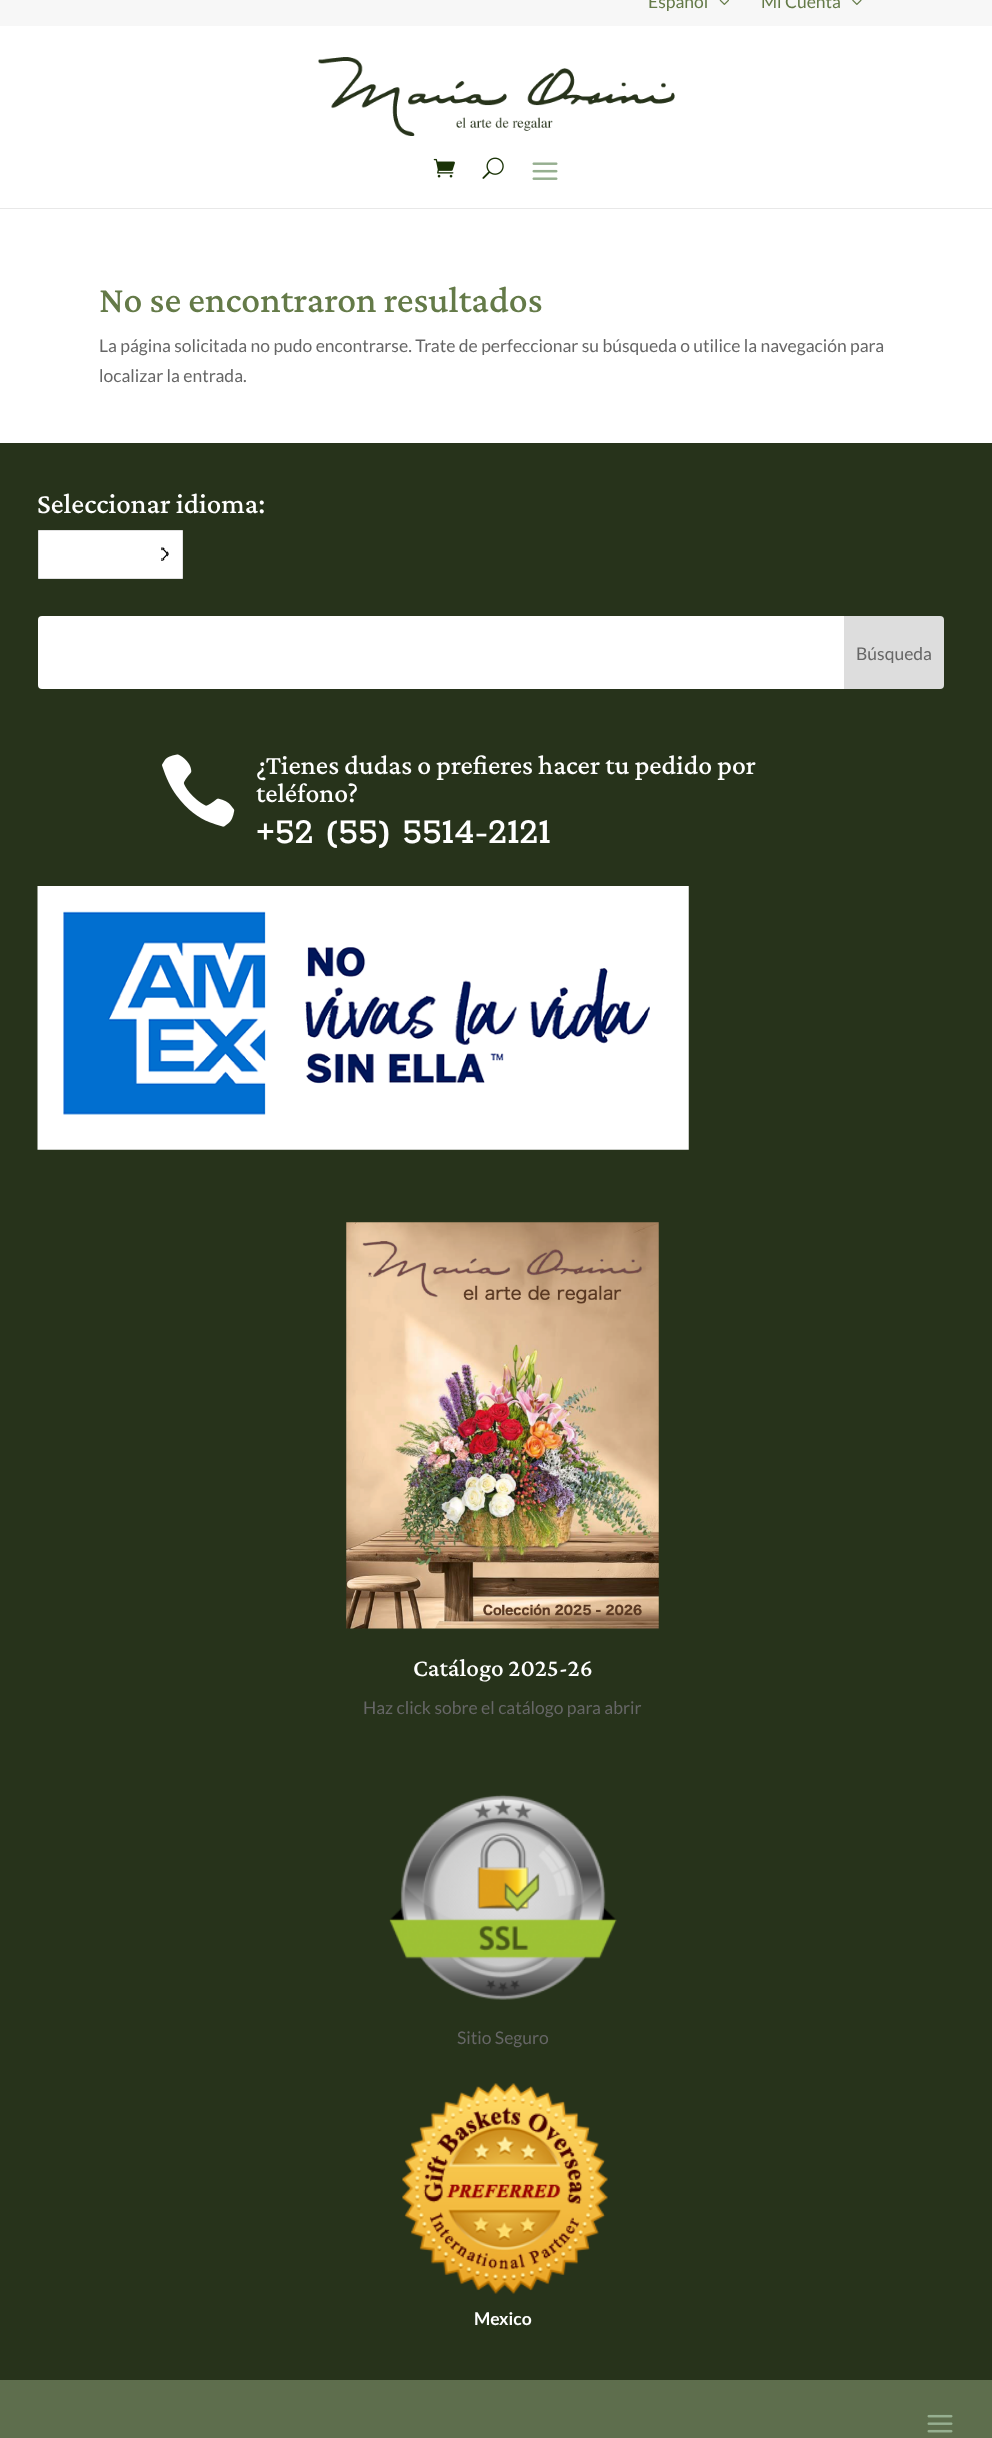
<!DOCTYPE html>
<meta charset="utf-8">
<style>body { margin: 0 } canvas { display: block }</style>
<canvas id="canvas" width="992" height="2438"></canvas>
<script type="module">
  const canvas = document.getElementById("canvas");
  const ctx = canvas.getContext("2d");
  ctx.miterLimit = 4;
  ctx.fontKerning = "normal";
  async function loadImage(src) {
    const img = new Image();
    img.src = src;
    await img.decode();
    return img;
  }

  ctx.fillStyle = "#ffffff";
  ctx.fillRect(0, 0, 992, 2438);
  ctx.fillStyle = "#e8e8e8";
  ctx.fillRect(0, 208, 992, 1);
  ctx.fillStyle = "#f7f7f7";
  ctx.fillRect(0, 0, 992, 26);
  ctx.font = "17.5px Lato";
  ctx.fillStyle = "#647a48";
  ctx.fillText("Español", 648, 8);
  ctx.drawImage(await loadImage("img1.png"), 719, 0, 10, 5);
  ctx.fillText("Mi Cuenta", 761, 8);
  ctx.drawImage(await loadImage("img2.png"), 852, 0, 10, 5);
  ctx.drawImage(await loadImage("img3.png"), 318, 57, 357, 79);
  ctx.drawImage(await loadImage("img4.png"), 433, 158, 22, 20);
  ctx.drawImage(await loadImage("img5.png"), 482, 157, 22, 22);
  ctx.drawImage(await loadImage("img6.png"), 532, 162, 26, 18);
  ctx.font = "500 37.5px Crimson Pro";
  ctx.fillText("No se encontraron resultados", 99, 312);
  ctx.font = "17.5px Lato";
  ctx.fillStyle = "#666666";
  ctx.fillText("La página solicitada no pudo encontrarse. Trate de perfeccionar su búsqueda o utilice la navegación para", 99, 352);
  ctx.fillText("localizar la entrada.", 99, 382);
  ctx.fillStyle = "#27331b";
  ctx.fillRect(0, 443, 992, 1937);
  ctx.font = "500 28.75px Crimson Pro";
  ctx.fillStyle = "#ffffff";
  ctx.fillText("Seleccionar idioma:", 37, 513);
  ctx.beginPath();
  ctx.rect(38.5, 530.5, 144, 48);
  ctx.fill();
  ctx.strokeStyle = "#e0e0e0";
  ctx.stroke();
  ctx.drawImage(await loadImage("img7.png"), 161, 547, 8, 14);
  ctx.beginPath();
  ctx.roundRect(38, 616, 806, 73, [4, 0, 0, 4]);
  ctx.fill();
  ctx.fillStyle = "#dddddd";
  ctx.beginPath();
  ctx.roundRect(844, 616, 100, 73, [0, 4, 4, 0]);
  ctx.fill();
  ctx.font = "17.5px Lato";
  ctx.fillStyle = "#666666";
  ctx.fillText("Búsqueda", 856, 660);
  ctx.drawImage(await loadImage("img8.png"), 162, 754, 73, 73);
  ctx.font = "500 27.5px Crimson Pro";
  ctx.fillStyle = "#ffffff";
  ctx.fillText("¿Tienes dudas o prefieres hacer tu pedido por", 256, 774);
  ctx.fillText("teléfono?", 256, 802);
  ctx.font = "500 38.75px Rokkitt";
  ctx.fillText("+52 (55) 5514-2121", 256, 843);
  ctx.drawImage(await loadImage("img9.png"), 37, 886, 652, 264);
  ctx.drawImage(await loadImage("img10.png"), 346, 1222, 313, 407);
  ctx.font = "500 25px Crimson Pro";
  ctx.fillText("Catálogo 2025-26", 413, 1676);
  ctx.font = "17.5px Lato";
  ctx.fillStyle = "#666666";
  ctx.fillText("Haz click sobre el catálogo para abrir", 363, 1714);
  ctx.drawImage(await loadImage("img11.png"), 389, 1794, 228, 206);
  ctx.fillText("Sitio Seguro", 457, 2044);
  ctx.drawImage(await loadImage("img12.png"), 402, 2083, 206, 211);
  ctx.font = "bold 17.5px Lato";
  ctx.fillStyle = "#ffffff";
  ctx.fillText("Mexico", 474, 2325);
  ctx.fillStyle = "#5e6e4d";
  ctx.fillRect(0, 2380, 992, 58);
  ctx.drawImage(await loadImage("img13.png"), 927, 2414, 26, 19);
</script>
